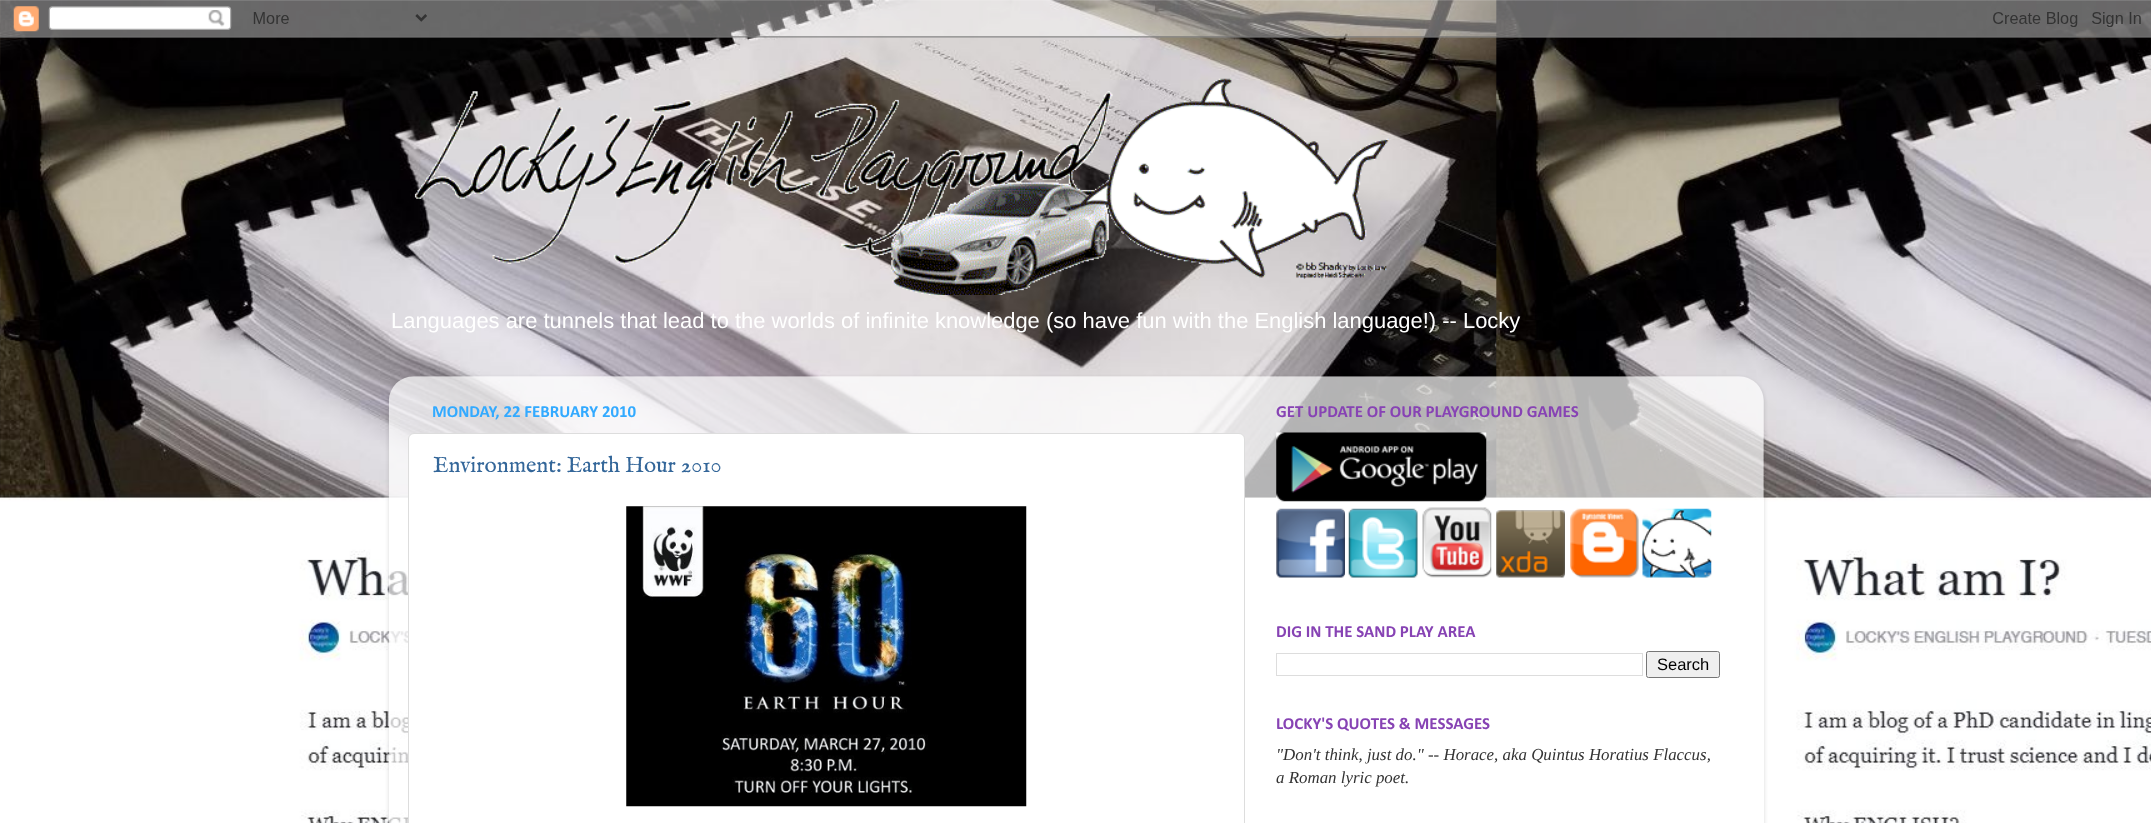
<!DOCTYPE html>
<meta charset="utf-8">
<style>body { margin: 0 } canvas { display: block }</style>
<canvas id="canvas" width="2151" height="823"></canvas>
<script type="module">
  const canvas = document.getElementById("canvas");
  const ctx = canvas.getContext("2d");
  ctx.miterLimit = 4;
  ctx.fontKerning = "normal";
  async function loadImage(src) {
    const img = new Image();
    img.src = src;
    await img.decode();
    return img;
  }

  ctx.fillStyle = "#ffffff";
  ctx.fillRect(0, 0, 2151, 823);
  ctx.drawImage(await loadImage("img1.png"), 0, 0, 2151, 823);
  ctx.drawImage(await loadImage("img2.png"), 0, 0, 2151, 38);
  ctx.drawImage(await loadImage("img3.png"), 414, 78, 975, 217);
  ctx.font = "21.95px Liberation Sans";
  ctx.fillText("Languages are tunnels that lead to the worlds of infinite knowledge (so have fun with the English language!) -- Locky", 391, 328);
  ctx.save();
  ctx.beginPath();
  ctx.moveTo(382, 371);
  ctx.lineTo(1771, 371);
  ctx.lineTo(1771, 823);
  ctx.lineTo(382, 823);
  ctx.closePath();
  ctx.moveTo(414, 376);
  ctx.lineTo(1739, 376);
  ctx.bezierCurveTo(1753, 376, 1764, 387, 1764, 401);
  ctx.lineTo(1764, 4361);
  ctx.lineTo(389, 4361);
  ctx.lineTo(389, 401);
  ctx.bezierCurveTo(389, 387, 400, 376, 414, 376);
  ctx.closePath();
  ctx.clip("evenodd");
  ctx.fillStyle = "rgba(0, 0, 0, 0.15)";
  ctx.filter = "blur(2px)";
  ctx.beginPath();
  ctx.roundRect(389, 378, 1375, 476, 25);
  ctx.fill();
  ctx.filter = "none";
  ctx.restore();
  ctx.drawImage(await loadImage("img4.png"), 388, 376, 1376, 447);
  ctx.font = "bold 16.9px Calibri";
  ctx.fillStyle = "#33aaff";
  ctx.fillText("MONDAY, 22 FEBRUARY 2010", 432, 417);
  ctx.fillStyle = "#ffffff";
  ctx.beginPath();
  ctx.roundRect(408.5, 433.5, 836, 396, 5.5);
  ctx.fill();
  ctx.strokeStyle = "#dddddd";
  ctx.stroke();
  ctx.font = "22.5px IM FELL English";
  ctx.fillStyle = "#336699";
  ctx.fillText("Environment: Earth Hour 2010", 433, 472);
  ctx.drawImage(await loadImage("img5.png"), 626, 506, 401, 301);
  ctx.font = "bold 16.9px Calibri";
  ctx.fillStyle = "#8743b4";
  ctx.fillText("GET UPDATE OF OUR PLAYGROUND GAMES", 1276, 417);
  ctx.drawImage(await loadImage("img6.png"), 1276, 432, 211, 70);
  ctx.drawImage(await loadImage("img7.png"), 1276, 508, 69, 70);
  ctx.drawImage(await loadImage("img8.png"), 1348, 508, 70, 70);
  ctx.drawImage(await loadImage("img9.png"), 1422, 507, 70, 71);
  ctx.drawImage(await loadImage("img10.png"), 1496, 510, 69, 68);
  ctx.drawImage(await loadImage("img11.png"), 1570, 508, 69, 70);
  ctx.drawImage(await loadImage("img12.png"), 1642, 508, 70, 70);
  ctx.fillText("DIG IN THE SAND PLAY AREA", 1276, 637);
  ctx.strokeRect(1276.5, 653.5, 366, 22);
  ctx.fillStyle = "#efefef";
  ctx.beginPath();
  ctx.roundRect(1646.5, 651.5, 73, 26, 2);
  ctx.fill();
  ctx.strokeStyle = "#767676";
  ctx.stroke();
  ctx.font = "16.5px Liberation Sans";
  ctx.fillStyle = "#000000";
  ctx.fillText("Search", 1657, 670);
  ctx.font = "bold 16.9px Calibri";
  ctx.fillStyle = "#8743b4";
  ctx.fillText("LOCKY'S QUOTES & MESSAGES", 1276, 729);
  ctx.font = "italic 16.9px Liberation Serif";
  ctx.fillStyle = "#333333";
  ctx.fillText("\"Don't think, just do.\" -- Horace, aka Quintus Horatius Flaccus,", 1276, 760);
  ctx.fillText("a Roman lyric poet.", 1276, 783);
</script>
